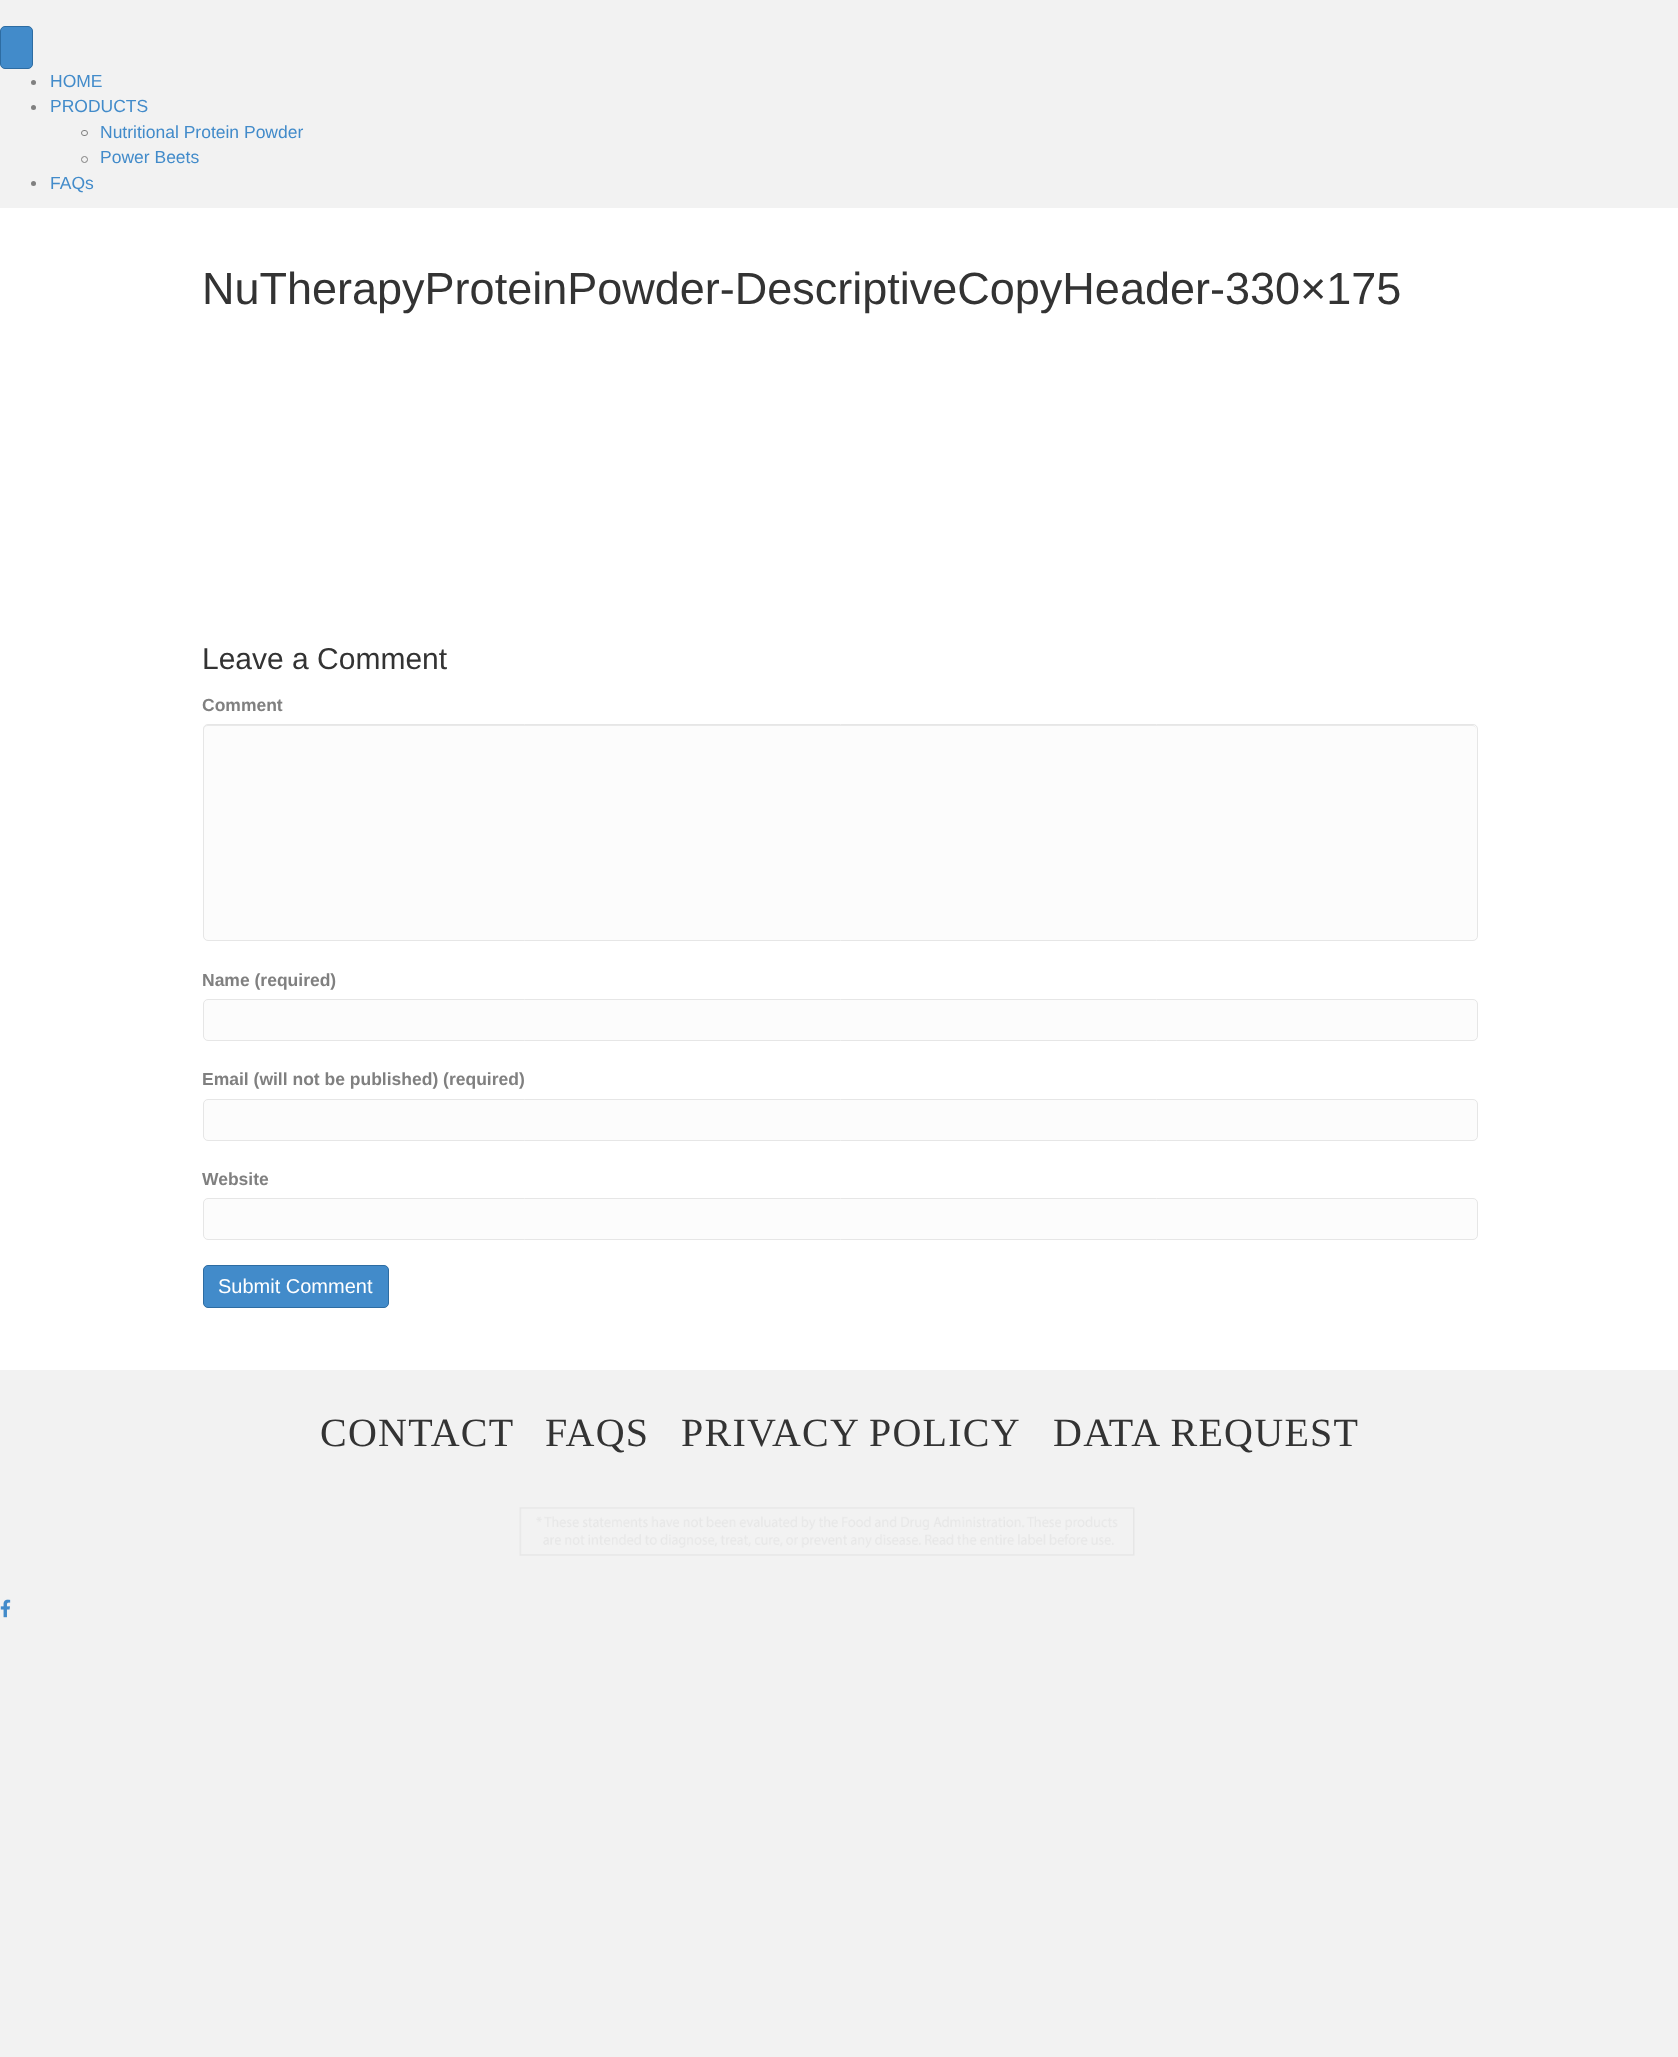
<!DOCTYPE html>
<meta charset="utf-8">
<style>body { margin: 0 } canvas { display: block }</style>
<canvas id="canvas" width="1678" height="2057"></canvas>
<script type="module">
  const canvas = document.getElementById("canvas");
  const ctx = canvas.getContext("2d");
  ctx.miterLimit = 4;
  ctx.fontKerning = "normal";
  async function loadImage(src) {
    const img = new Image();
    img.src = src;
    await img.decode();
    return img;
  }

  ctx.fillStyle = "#f2f2f2";
  ctx.fillRect(0, 0, 1678, 2057);
  ctx.fillStyle = "#428bca";
  ctx.beginPath();
  ctx.roundRect(0.5, 26.5, 32, 42, 4.5);
  ctx.fill();
  ctx.strokeStyle = "#2d6ca2";
  ctx.stroke();
  ctx.fillStyle = "#808080";
  ctx.beginPath();
  ctx.arc(33.5, 82.5, 2.5, 0, Math.PI * 2);
  ctx.fill();
  ctx.font = "17.5px Liberation Sans";
  ctx.fillStyle = "#428bca";
  ctx.fillText("HOME", 50, 87);
  ctx.fillStyle = "#808080";
  ctx.beginPath();
  ctx.arc(33.5, 107.5, 2.5, 0, Math.PI * 2);
  ctx.fill();
  ctx.fillStyle = "#428bca";
  ctx.fillText("PRODUCTS", 50, 112);
  ctx.beginPath();
  ctx.roundRect(81.5, 130.5, 6, 5, 2.5);
  ctx.strokeStyle = "#808080";
  ctx.stroke();
  ctx.fillText("Nutritional Protein Powder", 100, 138);
  ctx.beginPath();
  ctx.arc(84.5, 159.5, 3, 0, Math.PI * 2);
  ctx.stroke();
  ctx.fillText("Power Beets", 100, 163);
  ctx.fillStyle = "#808080";
  ctx.beginPath();
  ctx.arc(33.5, 183.5, 2.5, 0, Math.PI * 2);
  ctx.fill();
  ctx.fillStyle = "#428bca";
  ctx.fillText("FAQs", 50, 189);
  ctx.fillStyle = "#ffffff";
  ctx.fillRect(0, 208, 1678, 1162);
  ctx.font = "45px Liberation Sans";
  ctx.fillStyle = "#333333";
  ctx.fillText("NuTherapyProteinPowder-DescriptiveCopyHeader-330×175", 202, 304);
  ctx.font = "30px Liberation Sans";
  ctx.fillText("Leave a Comment", 202, 669);
  ctx.font = "bold 17.5px Liberation Sans";
  ctx.fillStyle = "#808080";
  ctx.fillText("Comment", 202, 711);
  ctx.fillStyle = "#fcfcfc";
  ctx.beginPath();
  ctx.roundRect(203, 724, 1275, 217, 5);
  ctx.fill();
  ctx.fillStyle = "#e9e9e9";
  ctx.beginPath();
  ctx.moveTo(208, 726);
  ctx.lineTo(1472, 726);
  ctx.bezierCurveTo(1475, 726, 1476, 728, 1476, 730);
  ctx.lineTo(1476, 729);
  ctx.bezierCurveTo(1476, 727, 1474, 725, 1472, 725);
  ctx.lineTo(208, 725);
  ctx.bezierCurveTo(206, 725, 204, 727, 204, 729);
  ctx.lineTo(204, 730);
  ctx.bezierCurveTo(204, 728, 205, 726, 208, 726);
  ctx.closePath();
  ctx.fill();
  ctx.beginPath();
  ctx.roundRect(203.5, 724.5, 1274, 216, 4.5);
  ctx.strokeStyle = "#e6e6e6";
  ctx.stroke();
  ctx.fillStyle = "#808080";
  ctx.fillText("Name (required)", 202, 986);
  ctx.fillStyle = "#fcfcfc";
  ctx.beginPath();
  ctx.roundRect(203.5, 999.5, 1274, 41, 4.5);
  ctx.fill();
  ctx.stroke();
  ctx.fillStyle = "#808080";
  ctx.fillText("Email (will not be published) (required)", 202, 1085);
  ctx.fillStyle = "#fcfcfc";
  ctx.beginPath();
  ctx.roundRect(203.5, 1099.5, 1274, 41, 4.5);
  ctx.fill();
  ctx.stroke();
  ctx.fillStyle = "#808080";
  ctx.fillText("Website", 202, 1185);
  ctx.fillStyle = "#fcfcfc";
  ctx.beginPath();
  ctx.roundRect(203.5, 1198.5, 1274, 41, 4.5);
  ctx.fill();
  ctx.stroke();
  ctx.fillStyle = "#428bca";
  ctx.beginPath();
  ctx.roundRect(203.5, 1265.5, 185, 42, 4.5);
  ctx.fill();
  ctx.strokeStyle = "#2d6ca2";
  ctx.stroke();
  ctx.font = "20px Liberation Sans";
  ctx.fillStyle = "#ffffff";
  ctx.fillText("Submit Comment", 218, 1293);
  ctx.letterSpacing = "1.25px";
  ctx.font = "40px Liberation Serif";
  ctx.fillStyle = "#333333";
  ctx.fillText("CONTACT", 320, 1446);
  ctx.fillText("FAQS", 545, 1446);
  ctx.wordSpacing = "-1px";
  ctx.fillText("PRIVACY POLICY", 681, 1446);
  ctx.wordSpacing = "0px";
  ctx.fillText("DATA REQUEST", 1053, 1446);
  ctx.drawImage(await loadImage("img1.png"), 519, 1507, 616, 49);
  ctx.drawImage(await loadImage("img2.png"), 0, 1599, 11, 19);
</script>
